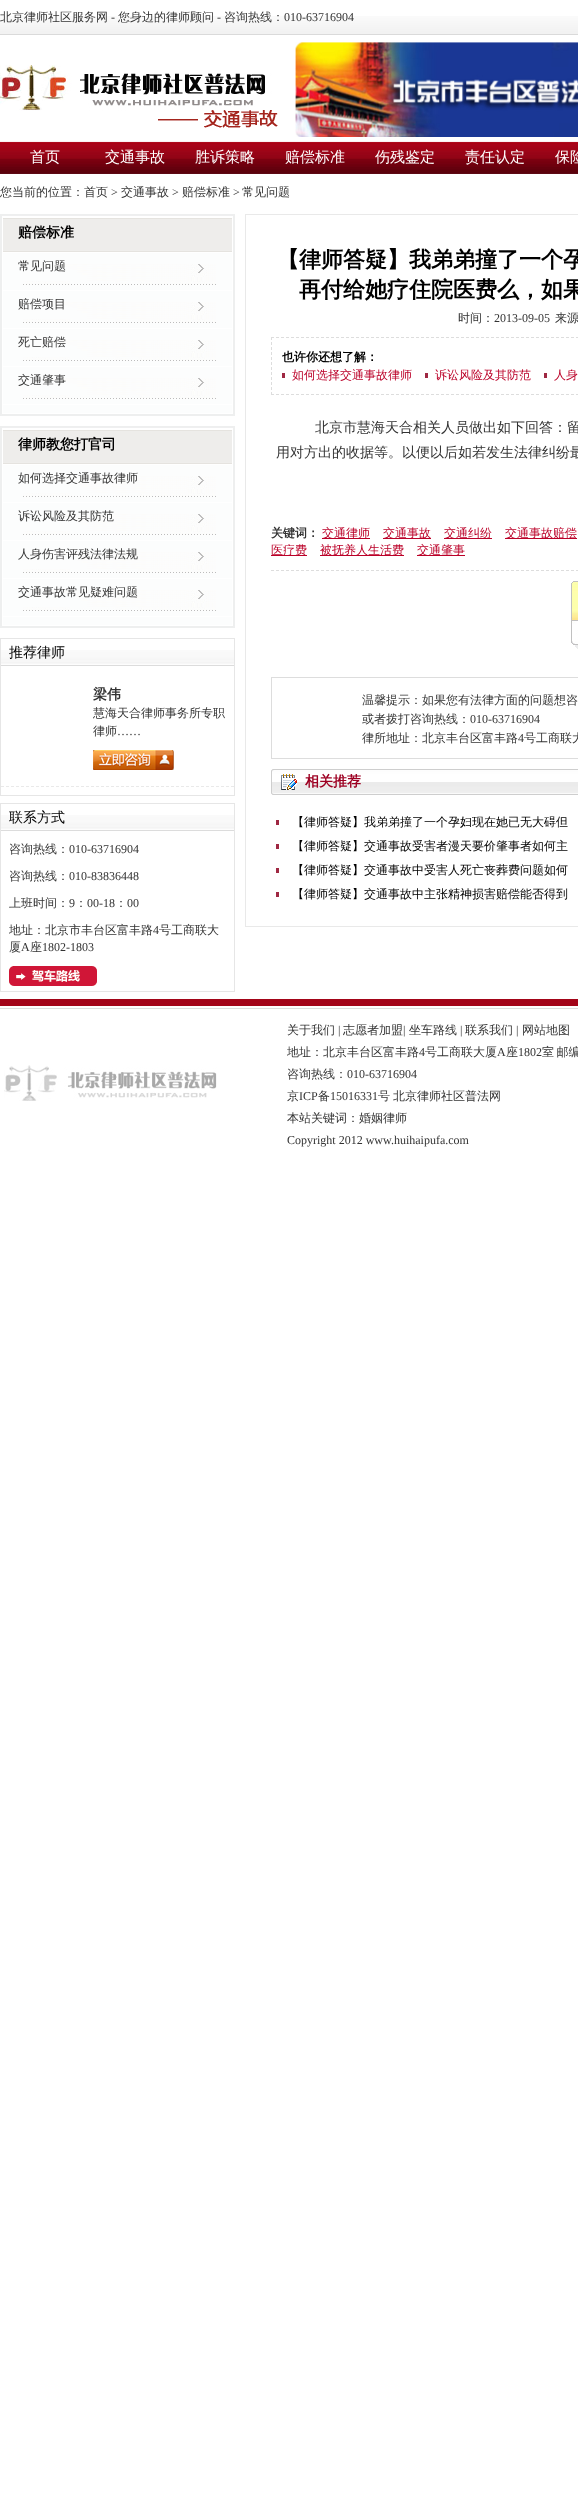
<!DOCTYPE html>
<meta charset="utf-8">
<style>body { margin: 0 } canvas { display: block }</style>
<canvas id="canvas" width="578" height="2517"></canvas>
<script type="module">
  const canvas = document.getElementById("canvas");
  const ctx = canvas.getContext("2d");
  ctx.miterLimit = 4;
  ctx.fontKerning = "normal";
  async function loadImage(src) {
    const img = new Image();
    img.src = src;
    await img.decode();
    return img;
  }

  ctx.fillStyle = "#ffffff";
  ctx.fillRect(0, 0, 578, 2517);
  ctx.drawImage(await loadImage("img1.png"), 0, 16, 578, 19);
  ctx.font = "500 12px WenQuanYi Zen Hei";
  ctx.fillStyle = "#333333";
  ctx.fillText("北京律师社区服务网", 0, 21);
  ctx.font = "12px Liberation Serif";
  ctx.fillText("-", 111, 21);
  ctx.font = "500 12px WenQuanYi Zen Hei";
  ctx.fillText("您身边的律师顾问", 118, 21);
  ctx.font = "12px Liberation Serif";
  ctx.fillText("-", 217, 21);
  ctx.font = "500 12px WenQuanYi Zen Hei";
  ctx.fillText("咨询热线：", 224, 21);
  ctx.font = "12px Liberation Serif";
  ctx.fillText("010-63716904", 284, 21);
  ctx.drawImage(await loadImage("img2.png"), 0, 65, 278, 63);
  ctx.drawImage(await loadImage("img3.png"), 295, 42, 283, 95);
  ctx.drawImage(await loadImage("img4.png"), 0, 141, 578, 33);
  ctx.font = "500 15px WenQuanYi Zen Hei";
  ctx.fillStyle = "#ffffff";
  ctx.fillText("首页", 30, 162);
  ctx.fillText("交通事故", 105, 162);
  ctx.fillText("胜诉策略", 195, 162);
  ctx.fillText("赔偿标准", 285, 162);
  ctx.fillText("伤残鉴定", 375, 162);
  ctx.fillText("责任认定", 465, 162);
  ctx.fillText("保险", 555, 162);
  ctx.font = "500 12px WenQuanYi Zen Hei";
  ctx.fillStyle = "#333333";
  ctx.fillText("您当前的位置：首页", 0, 196);
  ctx.font = "12px Liberation Serif";
  ctx.fillText(">", 111, 196);
  ctx.font = "500 12px WenQuanYi Zen Hei";
  ctx.fillText("交通事故", 121, 196);
  ctx.font = "12px Liberation Serif";
  ctx.fillText(">", 172, 196);
  ctx.font = "500 12px WenQuanYi Zen Hei";
  ctx.fillText("赔偿标准", 182, 196);
  ctx.font = "12px Liberation Serif";
  ctx.fillText(">", 233, 196);
  ctx.font = "500 12px WenQuanYi Zen Hei";
  ctx.fillText("常见问题", 242, 196);
  ctx.drawImage(await loadImage("img5.png"), 0, 214, 235, 38);
  ctx.font = "bold 14px WenQuanYi Zen Hei";
  ctx.fillStyle = "#000000";
  ctx.fillText("赔偿标准", 18, 237);
  ctx.fillStyle = "#eeefef";
  ctx.fillRect(233, 252, 2, 164);
  ctx.fillRect(0, 414, 235, 2);
  ctx.fillRect(0, 252, 2, 164);
  ctx.fillStyle = "#fcfdfd";
  ctx.fillRect(3, 253, 229, 160);
  ctx.drawImage(await loadImage("img6.png"), 23, 264, 193, 21);
  ctx.fillStyle = "#ffffff";
  ctx.fillRect(3, 290, 229, 1);
  ctx.font = "500 12px WenQuanYi Zen Hei";
  ctx.fillStyle = "#333333";
  ctx.fillText("常见问题", 18, 270);
  ctx.drawImage(await loadImage("img6.png"), 23, 302, 193, 21);
  ctx.fillStyle = "#ffffff";
  ctx.fillRect(3, 328, 229, 1);
  ctx.fillStyle = "#333333";
  ctx.fillText("赔偿项目", 18, 308);
  ctx.drawImage(await loadImage("img6.png"), 23, 340, 193, 21);
  ctx.fillStyle = "#ffffff";
  ctx.fillRect(3, 366, 229, 1);
  ctx.fillStyle = "#333333";
  ctx.fillText("死亡赔偿", 18, 346);
  ctx.drawImage(await loadImage("img6.png"), 23, 378, 193, 21);
  ctx.fillStyle = "#ffffff";
  ctx.fillRect(3, 404, 229, 1);
  ctx.fillStyle = "#333333";
  ctx.fillText("交通肇事", 18, 384);
  ctx.drawImage(await loadImage("img5.png"), 0, 426, 235, 38);
  ctx.font = "bold 14px WenQuanYi Zen Hei";
  ctx.fillStyle = "#000000";
  ctx.fillText("律师教您打官司", 18, 449);
  ctx.fillStyle = "#eeefef";
  ctx.fillRect(233, 464, 2, 164);
  ctx.fillRect(0, 626, 235, 2);
  ctx.fillRect(0, 464, 2, 164);
  ctx.fillStyle = "#fcfdfd";
  ctx.fillRect(3, 465, 229, 160);
  ctx.drawImage(await loadImage("img6.png"), 23, 476, 193, 21);
  ctx.fillStyle = "#ffffff";
  ctx.fillRect(3, 502, 229, 1);
  ctx.font = "500 12px WenQuanYi Zen Hei";
  ctx.fillStyle = "#333333";
  ctx.fillText("如何选择交通事故律师", 18, 482);
  ctx.drawImage(await loadImage("img6.png"), 23, 514, 193, 21);
  ctx.fillStyle = "#ffffff";
  ctx.fillRect(3, 540, 229, 1);
  ctx.fillStyle = "#333333";
  ctx.fillText("诉讼风险及其防范", 18, 520);
  ctx.drawImage(await loadImage("img6.png"), 23, 552, 193, 21);
  ctx.fillStyle = "#ffffff";
  ctx.fillRect(3, 578, 229, 1);
  ctx.fillStyle = "#333333";
  ctx.fillText("人身伤害评残法律法规", 18, 558);
  ctx.drawImage(await loadImage("img6.png"), 23, 590, 193, 21);
  ctx.fillStyle = "#ffffff";
  ctx.fillRect(3, 616, 229, 1);
  ctx.fillStyle = "#333333";
  ctx.fillText("交通事故常见疑难问题", 18, 596);
  ctx.strokeStyle = "#e6e6e6";
  ctx.strokeRect(0.5, 638.5, 234, 157);
  ctx.drawImage(await loadImage("img7.png"), 1, 650, 233, 16);
  ctx.font = "500 14px WenQuanYi Zen Hei";
  ctx.fillStyle = "#000000";
  ctx.fillText("推荐律师", 9, 657);
  ctx.beginPath();
  ctx.moveTo(1, 786.5);
  ctx.lineTo(234, 786.5);
  ctx.strokeStyle = "#e9e9e9";
  ctx.setLineDash([3, 2]);
  ctx.stroke();
  ctx.font = "bold 14px WenQuanYi Zen Hei";
  ctx.fillStyle = "#333333";
  ctx.fillText("梁伟", 93, 699);
  ctx.font = "500 12px WenQuanYi Zen Hei";
  ctx.fillText("慧海天合律师事务所专职", 93, 717);
  ctx.fillText("律师", 93, 735);
  ctx.font = "12px Liberation Serif";
  ctx.fillText("……", 117, 735);
  ctx.drawImage(await loadImage("img8.png"), 93, 750, 81, 20);
  ctx.strokeStyle = "#e6e6e6";
  ctx.setLineDash([]);
  ctx.strokeRect(0.5, 803.5, 234, 188);
  ctx.drawImage(await loadImage("img7.png"), 1, 815, 233, 16);
  ctx.font = "500 14px WenQuanYi Zen Hei";
  ctx.fillStyle = "#000000";
  ctx.fillText("联系方式", 9, 822);
  ctx.font = "500 12px WenQuanYi Zen Hei";
  ctx.fillStyle = "#333333";
  ctx.fillText("咨询热线：", 9, 853);
  ctx.font = "12px Liberation Serif";
  ctx.fillText("010-63716904", 69, 853);
  ctx.font = "500 12px WenQuanYi Zen Hei";
  ctx.fillText("咨询热线：", 9, 880);
  ctx.font = "12px Liberation Serif";
  ctx.fillText("010-83836448", 69, 880);
  ctx.font = "500 12px WenQuanYi Zen Hei";
  ctx.fillText("上班时间：", 9, 907);
  ctx.font = "12px Liberation Serif";
  ctx.fillText("9", 69, 907);
  ctx.font = "500 12px WenQuanYi Zen Hei";
  ctx.fillText("：", 75, 907);
  ctx.font = "12px Liberation Serif";
  ctx.fillText("00-18", 87, 907);
  ctx.font = "500 12px WenQuanYi Zen Hei";
  ctx.fillText("：", 115, 907);
  ctx.font = "12px Liberation Serif";
  ctx.fillText("00", 127, 907);
  ctx.font = "500 12px WenQuanYi Zen Hei";
  ctx.fillText("地址：北京市丰台区富丰路", 9, 934);
  ctx.font = "12px Liberation Serif";
  ctx.fillText("4", 153, 934);
  ctx.font = "500 12px WenQuanYi Zen Hei";
  ctx.fillText("号工商联大", 159, 934);
  ctx.fillText("厦", 9, 951);
  ctx.font = "12px Liberation Serif";
  ctx.fillText("A", 21, 951);
  ctx.font = "500 12px WenQuanYi Zen Hei";
  ctx.fillText("座", 30, 951);
  ctx.font = "12px Liberation Serif";
  ctx.fillText("1802-1803", 42, 951);
  ctx.drawImage(await loadImage("img9.png"), 9, 966, 88, 20);
  ctx.strokeStyle = "#e9e9e9";
  ctx.strokeRect(245.5, 214.5, 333, 712);
  ctx.font = "bold 22px WenQuanYi Zen Hei";
  ctx.fillStyle = "#000000";
  ctx.fillText("【律师答疑】我弟弟撞了一个孕", 277, 267);
  ctx.fillText("再付给她疗住院医费么，如果", 299, 297);
  ctx.font = "500 12px WenQuanYi Zen Hei";
  ctx.fillStyle = "#333333";
  ctx.fillText("时间：", 458, 322);
  ctx.font = "12px Liberation Serif";
  ctx.fillText("2013-09-05", 494, 322);
  ctx.font = "500 12px WenQuanYi Zen Hei";
  ctx.fillText("来源", 555, 322);
  ctx.beginPath();
  ctx.moveTo(271, 337.5);
  ctx.lineTo(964, 337.5);
  ctx.strokeStyle = "#dddddd";
  ctx.setLineDash([3, 2]);
  ctx.stroke();
  ctx.beginPath();
  ctx.moveTo(271, 394.5);
  ctx.lineTo(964, 394.5);
  ctx.stroke();
  ctx.beginPath();
  ctx.moveTo(271.5, 337);
  ctx.lineTo(271.5, 395);
  ctx.stroke();
  ctx.font = "bold 12px WenQuanYi Zen Hei";
  ctx.fillStyle = "#000000";
  ctx.fillText("也许你还想了解：", 282, 361);
  ctx.font = "500 12px WenQuanYi Zen Hei";
  ctx.fillStyle = "#bb0028";
  ctx.fillText("如何选择交通事故律师", 292, 379);
  ctx.fillStyle = "#9f2842";
  ctx.fillRect(282, 373, 3, 5);
  ctx.fillStyle = "#bb0028";
  ctx.fillText("诉讼风险及其防范", 435, 379);
  ctx.fillStyle = "#9f2842";
  ctx.fillRect(425, 373, 3, 5);
  ctx.fillStyle = "#bb0028";
  ctx.fillText("人身", 554, 379);
  ctx.fillStyle = "#9f2842";
  ctx.fillRect(544, 373, 3, 5);
  ctx.font = "500 14px WenQuanYi Zen Hei";
  ctx.fillStyle = "#333333";
  ctx.fillText("北京市慧海天合相关人员做出如下回答：留", 315, 432);
  ctx.fillText("用对方出的收据等。以便以后如若发生法律纠纷最", 276, 457);
  ctx.font = "bold 12px WenQuanYi Zen Hei";
  ctx.fillText("关键词：", 271, 537);
  ctx.fillStyle = "#bb0028";
  ctx.fillRect(322, 538, 48, 1);
  ctx.font = "500 12px WenQuanYi Zen Hei";
  ctx.fillText("交通律师", 322, 537);
  ctx.fillRect(383, 538, 48, 1);
  ctx.fillText("交通事故", 383, 537);
  ctx.fillRect(444, 538, 48, 1);
  ctx.fillText("交通纠纷", 444, 537);
  ctx.fillRect(505, 538, 72, 1);
  ctx.fillText("交通事故赔偿", 505, 537);
  ctx.fillRect(271, 555, 36, 1);
  ctx.fillText("医疗费", 271, 554);
  ctx.fillRect(320, 555, 84, 1);
  ctx.fillText("被抚养人生活费", 320, 554);
  ctx.fillRect(417, 555, 48, 1);
  ctx.fillText("交通肇事", 417, 554);
  ctx.beginPath();
  ctx.moveTo(271, 570.5);
  ctx.lineTo(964, 570.5);
  ctx.stroke();
  ctx.drawImage(await loadImage("img10.png"), 571, 581, 7, 68);
  ctx.setLineDash([]);
  ctx.strokeRect(271.5, 677.5, 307, 81);
  ctx.fillStyle = "#333333";
  ctx.fillText("温馨提示：如果您有法律方面的问题想咨", 362, 704);
  ctx.fillText("或者拨打咨询热线：", 362, 723);
  ctx.font = "12px Liberation Serif";
  ctx.fillText("010-63716904", 470, 723);
  ctx.font = "500 12px WenQuanYi Zen Hei";
  ctx.fillText("律所地址：北京丰台区富丰路", 362, 742);
  ctx.font = "12px Liberation Serif";
  ctx.fillText("4", 518, 742);
  ctx.font = "500 12px WenQuanYi Zen Hei";
  ctx.fillText("号工商联大", 524, 742);
  ctx.drawImage(await loadImage("img11.png"), 271, 769, 307, 26);
  ctx.drawImage(await loadImage("img12.png"), 281, 774, 16, 16);
  ctx.font = "bold 14px WenQuanYi Zen Hei";
  ctx.fillStyle = "#9d0022";
  ctx.fillText("相关推荐", 305, 786);
  ctx.fillStyle = "#9f2842";
  ctx.fillRect(276, 820, 3, 5);
  ctx.font = "500 12px WenQuanYi Zen Hei";
  ctx.fillStyle = "#000000";
  ctx.fillText("【律师答疑】我弟弟撞了一个孕妇现在她已无大碍但", 292, 826);
  ctx.fillStyle = "#9f2842";
  ctx.fillRect(276, 844, 3, 5);
  ctx.fillStyle = "#000000";
  ctx.fillText("【律师答疑】交通事故受害者漫天要价肇事者如何主", 292, 850);
  ctx.fillStyle = "#9f2842";
  ctx.fillRect(276, 868, 3, 5);
  ctx.fillStyle = "#000000";
  ctx.fillText("【律师答疑】交通事故中受害人死亡丧葬费问题如何", 292, 874);
  ctx.fillStyle = "#9f2842";
  ctx.fillRect(276, 892, 3, 5);
  ctx.fillStyle = "#000000";
  ctx.fillText("【律师答疑】交通事故中主张精神损害赔偿能否得到", 292, 898);
  ctx.drawImage(await loadImage("img13.png"), 0, 999, 578, 10);
  ctx.drawImage(await loadImage("img14.png"), 4, 1065, 213, 36);
  ctx.fillStyle = "#333333";
  ctx.fillText("关于我们", 287, 1034);
  ctx.font = "12px Liberation Serif";
  ctx.fillText("|", 338, 1034);
  ctx.font = "500 12px WenQuanYi Zen Hei";
  ctx.fillText("志愿者加盟", 343, 1034);
  ctx.font = "12px Liberation Serif";
  ctx.fillText("|", 403, 1034);
  ctx.font = "500 12px WenQuanYi Zen Hei";
  ctx.fillText("坐车路线", 409, 1034);
  ctx.font = "12px Liberation Serif";
  ctx.fillText("|", 460, 1034);
  ctx.font = "500 12px WenQuanYi Zen Hei";
  ctx.fillText("联系我们", 465, 1034);
  ctx.font = "12px Liberation Serif";
  ctx.fillText("|", 516, 1034);
  ctx.font = "500 12px WenQuanYi Zen Hei";
  ctx.fillText("网站地图", 522, 1034);
  ctx.fillText("地址：北京丰台区富丰路", 287, 1056);
  ctx.font = "12px Liberation Serif";
  ctx.fillText("4", 419, 1056);
  ctx.font = "500 12px WenQuanYi Zen Hei";
  ctx.fillText("号工商联大厦", 425, 1056);
  ctx.font = "12px Liberation Serif";
  ctx.fillText("A", 497, 1056);
  ctx.font = "500 12px WenQuanYi Zen Hei";
  ctx.fillText("座", 506, 1056);
  ctx.font = "12px Liberation Serif";
  ctx.fillText("1802", 518, 1056);
  ctx.wordSpacing = "-1px";
  ctx.font = "500 12px WenQuanYi Zen Hei";
  ctx.fillText("室 邮编", 542, 1056);
  ctx.wordSpacing = "0px";
  ctx.fillText("咨询热线：", 287, 1078);
  ctx.font = "12px Liberation Serif";
  ctx.fillText("010-63716904", 347, 1078);
  ctx.font = "500 12px WenQuanYi Zen Hei";
  ctx.fillText("京", 287, 1100);
  ctx.font = "12px Liberation Serif";
  ctx.fillText("ICP", 299, 1100);
  ctx.font = "500 12px WenQuanYi Zen Hei";
  ctx.fillText("备", 318, 1100);
  ctx.font = "12px Liberation Serif";
  ctx.fillText("15016331", 330, 1100);
  ctx.font = "500 12px WenQuanYi Zen Hei";
  ctx.fillText("号", 378, 1100);
  ctx.fillText("北京律师社区普法网", 393, 1100);
  ctx.fillText("本站关键词：婚姻律师", 287, 1122);
  ctx.font = "12px Liberation Serif";
  ctx.fillText("Copyright 2012 www.huihaipufa.com", 287, 1144);
</script>
